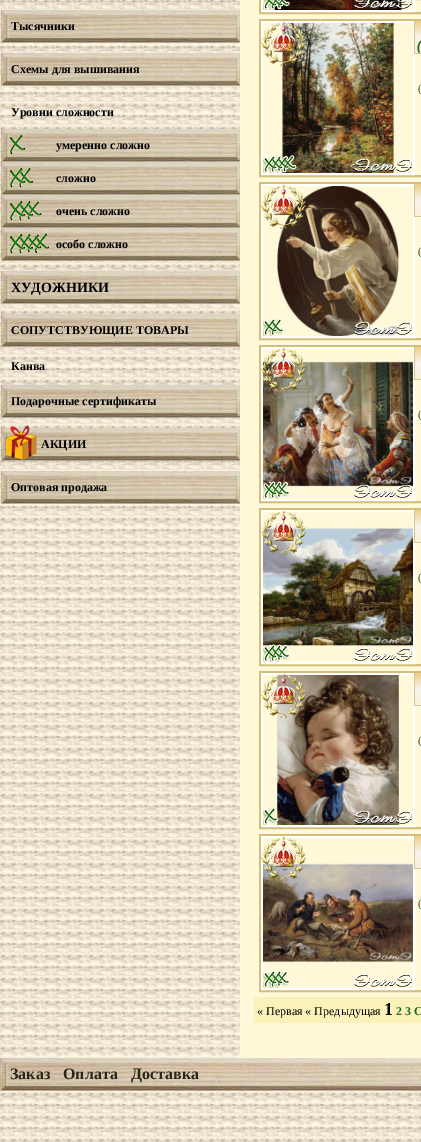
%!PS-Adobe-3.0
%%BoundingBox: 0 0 421 1142
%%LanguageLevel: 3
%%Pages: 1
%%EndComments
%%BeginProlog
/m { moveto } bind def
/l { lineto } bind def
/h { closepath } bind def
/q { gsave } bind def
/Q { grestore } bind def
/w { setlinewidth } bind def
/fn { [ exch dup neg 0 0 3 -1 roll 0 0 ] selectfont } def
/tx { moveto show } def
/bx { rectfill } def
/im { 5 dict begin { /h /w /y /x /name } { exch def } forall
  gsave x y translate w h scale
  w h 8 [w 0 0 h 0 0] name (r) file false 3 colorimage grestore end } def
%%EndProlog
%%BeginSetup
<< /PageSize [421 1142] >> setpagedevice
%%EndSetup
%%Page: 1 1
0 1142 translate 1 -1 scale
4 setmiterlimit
1 setgray
0 0 421 1142 bx
(image0.raw) 0 0 421 1142 im
(image1.raw) 1 10 239 33 im
/LiberationSerif-Bold 12 fn
0 setgray
(Тысячники) 11 30 tx
(image1.raw) 1 53 239 33 im
(Схемы для вышивания) 11 73 tx
(Уровни сложности) 11 116 tx
(image1.raw) 1 129 239 33 im
(image2.raw) 9 134 17 21 im
(умеренно сложно) 56 149 tx
(image1.raw) 1 162 239 33 im
(image3.raw) 9 167 25 21 im
(сложно) 56 182 tx
(image1.raw) 1 195 239 33 im
(image4.raw) 9 200 33 21 im
(очень сложно) 56 215 tx
(image1.raw) 1 228 239 33 im
(image5.raw) 9 233 40 21 im
(особо сложно) 56 248 tx
(image1.raw) 1 271 239 33 im
/LiberationSerif-Bold 14 fn
(ХУДОЖНИКИ) 11 292 tx
(image1.raw) 1 314 239 33 im
/LiberationSerif-Bold 12 fn
(СОПУТСТВУЮЩИЕ ТОВАРЫ) 11 334 tx
(Канва) 11 370 tx
(image1.raw) 1 385 239 33 im
(Подарочные сертификаты) 11 405 tx
(image1.raw) 1 428 239 33 im
(image6.raw) 5 425 32 35 im
(АКЦИИ) 41 448 tx
(image1.raw) 1 471 239 33 im
(Оптовая продажа) 11 491 tx
1 0.976 0.851 setrgbcolor
240 0 181 1058 bx
0.835 0.745 0.482 setrgbcolor
2 w
260 -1 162 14 rectstroke
1 setgray
262 -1 152 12 rectstroke
(image7.raw) 273 0 129 10 im
(image8.raw) 263 0 27 10 im
(image9.raw) 354 0 58 9 im
0.835 0.745 0.482 setrgbcolor
260 20 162 156 rectstroke
1 setgray
262 22 152 152 rectstroke
(image10.raw) 281 23 114 150 im
(image11.raw) 261 21 45 45 im
(image12.raw) 263 155 34 18 im
(image13.raw) 354 158 58 14 im
q 415 21 m 421 21 l 421 53 l 415 53 l h clip newpath
<< /ShadingType 2 /ColorSpace /DeviceRGB /Coords [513 21 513 53] /Extend [true true] /Function << /FunctionType 3 /Domain [0 1] /Functions [<< /FunctionType 2 /Domain [0 1] /C0 [0.929 0.808 0.529] /C1 [0.969 0.957 0.929] /N 1 >> << /FunctionType 2 /Domain [0 1] /C0 [0.969 0.957 0.929] /C1 [0.976 0.941 0.839] /N 1 >>] /Bounds [0.5] /Encode [0 1 0 1] >> >> shfill Q
0.827 0.773 0.588 setrgbcolor
414 53 7 1 bx
414 21 1 33 bx
/LiberationSans-BoldItalic 13 fn
0.137 0.42 0.09 setrgbcolor
(\() 417 50 tx
/LiberationSerif-Regular 11 fn
0.145 0.286 0.247 setrgbcolor
(\() 418 92 tx
0.835 0.745 0.482 setrgbcolor
260 183 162 156 rectstroke
1 setgray
262 185 152 152 rectstroke
(image14.raw) 277 186 122 150 im
(image15.raw) 261 184 45 45 im
(image16.raw) 263 318 21 18 im
(image17.raw) 354 321 58 14 im
q 415 184 m 421 184 l 421 216 l 415 216 l h clip newpath
<< /ShadingType 2 /ColorSpace /DeviceRGB /Coords [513 184 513 216] /Extend [true true] /Function << /FunctionType 3 /Domain [0 1] /Functions [<< /FunctionType 2 /Domain [0 1] /C0 [0.929 0.808 0.529] /C1 [0.969 0.957 0.929] /N 1 >> << /FunctionType 2 /Domain [0 1] /C0 [0.969 0.957 0.929] /C1 [0.976 0.941 0.839] /N 1 >>] /Bounds [0.5] /Encode [0 1 0 1] >> >> shfill Q
0.827 0.773 0.588 setrgbcolor
414 216 7 1 bx
414 184 1 33 bx
0.145 0.286 0.247 setrgbcolor
(\() 418 255 tx
0.835 0.745 0.482 setrgbcolor
260 346 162 156 rectstroke
1 setgray
262 348 152 152 rectstroke
(image18.raw) 263 361 150 126 im
(image19.raw) 261 347 45 45 im
(image20.raw) 263 481 27 18 im
(image21.raw) 354 484 58 14 im
q 415 347 m 421 347 l 421 379 l 415 379 l h clip newpath
<< /ShadingType 2 /ColorSpace /DeviceRGB /Coords [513 347 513 379] /Extend [true true] /Function << /FunctionType 3 /Domain [0 1] /Functions [<< /FunctionType 2 /Domain [0 1] /C0 [0.929 0.808 0.529] /C1 [0.969 0.957 0.929] /N 1 >> << /FunctionType 2 /Domain [0 1] /C0 [0.969 0.957 0.929] /C1 [0.976 0.941 0.839] /N 1 >>] /Bounds [0.5] /Encode [0 1 0 1] >> >> shfill Q
0.827 0.773 0.588 setrgbcolor
414 379 7 1 bx
414 347 1 33 bx
0.145 0.286 0.247 setrgbcolor
(\() 418 418 tx
0.835 0.745 0.482 setrgbcolor
260 509 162 156 rectstroke
1 setgray
262 511 152 152 rectstroke
(image22.raw) 263 527 150 120 im
(image23.raw) 261 510 45 45 im
(image24.raw) 263 644 27 18 im
(image25.raw) 354 647 58 14 im
q 415 510 m 421 510 l 421 542 l 415 542 l h clip newpath
<< /ShadingType 2 /ColorSpace /DeviceRGB /Coords [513 510 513 542] /Extend [true true] /Function << /FunctionType 3 /Domain [0 1] /Functions [<< /FunctionType 2 /Domain [0 1] /C0 [0.929 0.808 0.529] /C1 [0.969 0.957 0.929] /N 1 >> << /FunctionType 2 /Domain [0 1] /C0 [0.969 0.957 0.929] /C1 [0.976 0.941 0.839] /N 1 >>] /Bounds [0.5] /Encode [0 1 0 1] >> >> shfill Q
0.827 0.773 0.588 setrgbcolor
414 542 7 1 bx
414 510 1 33 bx
0.145 0.286 0.247 setrgbcolor
(\() 418 581 tx
0.835 0.745 0.482 setrgbcolor
260 672 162 156 rectstroke
1 setgray
262 674 152 152 rectstroke
(image26.raw) 275 675 124 150 im
(image27.raw) 261 673 45 45 im
(image28.raw) 263 807 16 18 im
(image29.raw) 354 810 58 14 im
q 415 673 m 421 673 l 421 705 l 415 705 l h clip newpath
<< /ShadingType 2 /ColorSpace /DeviceRGB /Coords [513 673 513 705] /Extend [true true] /Function << /FunctionType 3 /Domain [0 1] /Functions [<< /FunctionType 2 /Domain [0 1] /C0 [0.929 0.808 0.529] /C1 [0.969 0.957 0.929] /N 1 >> << /FunctionType 2 /Domain [0 1] /C0 [0.969 0.957 0.929] /C1 [0.976 0.941 0.839] /N 1 >>] /Bounds [0.5] /Encode [0 1 0 1] >> >> shfill Q
0.827 0.773 0.588 setrgbcolor
414 705 7 1 bx
414 673 1 33 bx
0.145 0.286 0.247 setrgbcolor
(\() 418 744 tx
0.835 0.745 0.482 setrgbcolor
260 835 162 156 rectstroke
1 setgray
262 837 152 152 rectstroke
(image30.raw) 263 863 150 100 im
(image31.raw) 261 836 45 45 im
(image32.raw) 263 970 27 18 im
(image25.raw) 354 973 58 14 im
q 415 836 m 421 836 l 421 868 l 415 868 l h clip newpath
<< /ShadingType 2 /ColorSpace /DeviceRGB /Coords [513 836 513 868] /Extend [true true] /Function << /FunctionType 3 /Domain [0 1] /Functions [<< /FunctionType 2 /Domain [0 1] /C0 [0.929 0.808 0.529] /C1 [0.969 0.957 0.929] /N 1 >> << /FunctionType 2 /Domain [0 1] /C0 [0.969 0.957 0.929] /C1 [0.976 0.941 0.839] /N 1 >>] /Bounds [0.5] /Encode [0 1 0 1] >> >> shfill Q
0.827 0.773 0.588 setrgbcolor
414 868 7 1 bx
414 836 1 33 bx
0.145 0.286 0.247 setrgbcolor
(\() 418 907 tx
0.984 0.949 0.725 setrgbcolor
254 997 167 26 bx
/LiberationSerif-Regular 12 fn
0 setgray
(« Первая « Предыдущая) 257 1015 tx
/LiberationSerif-Bold 18 fn
(1) 384 1015 tx
/LiberationSerif-Bold 12 fn
0.137 0.42 0.09 setrgbcolor
(2 3 С) 396 1015 tx
(image33.raw) 0 1058 421 33 im
/LiberationSerif-Bold 16 fn
0.165 0.153 0.094 setrgbcolor
(Заказ) 10 1079 tx
(Оплата) 63 1079 tx
(Доставка) 131 1079 tx
showpage
%%EOF
